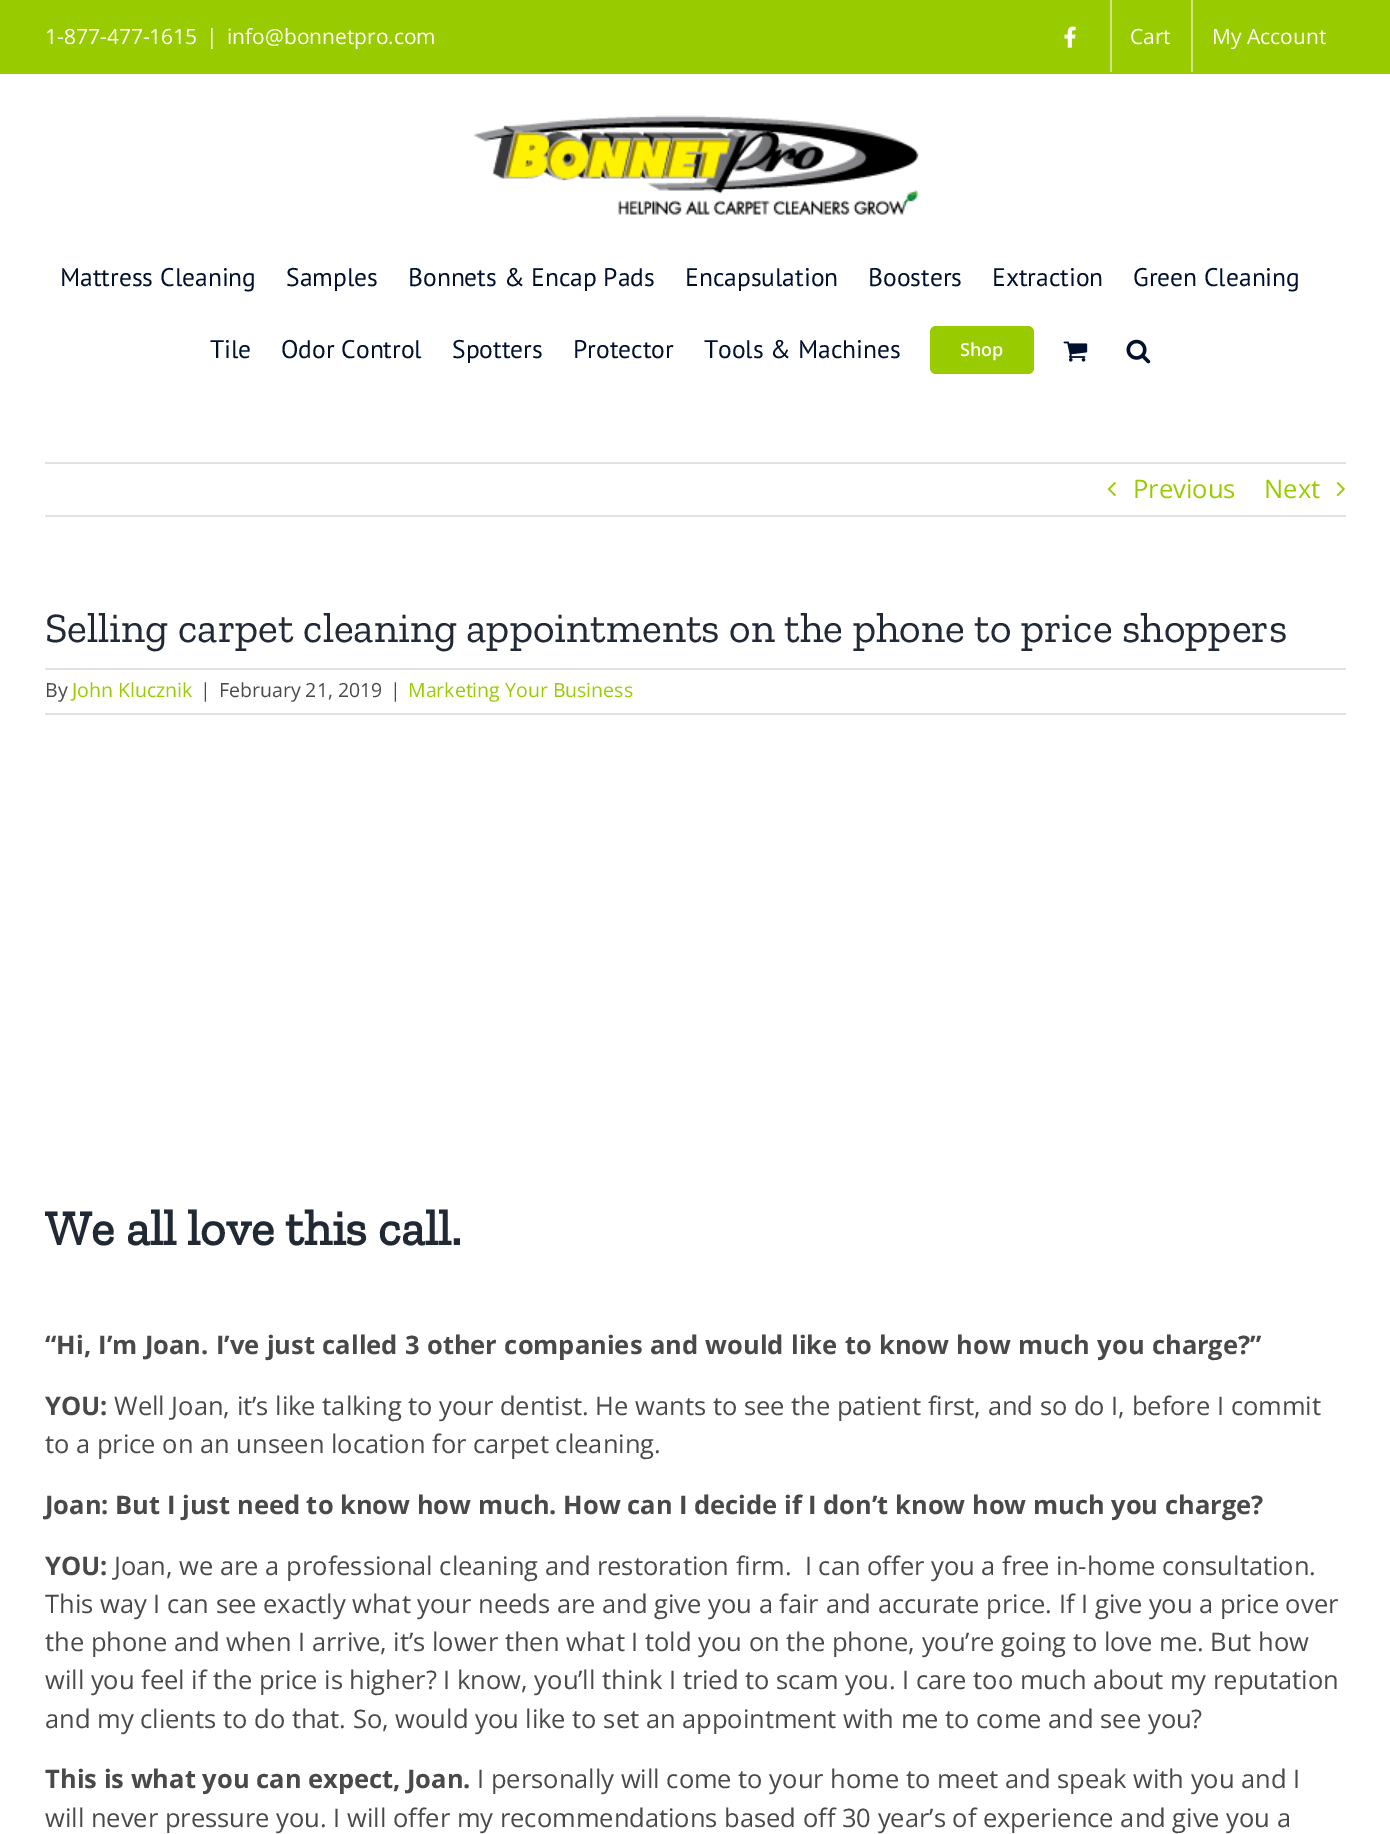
%!PS-Adobe-3.0
%%BoundingBox: 0 0 1390 1834
%%LanguageLevel: 3
%%Pages: 1
%%EndComments
%%BeginProlog
/m { moveto } bind def
/f { fill } bind def
/fn { [ exch dup neg 0 0 3 -1 roll 0 0 ] selectfont } def
/tx { moveto show } def
/bx { rectfill } def
/rr { 5 dict begin { /r /h /w /y /x } { exch def } forall
  x r add y moveto x w add y 2 copy h add r arct x w add y h add x 1 index r arct
  x y h add x y r arct x y 2 copy exch w add exch r arct closepath end } def
/im { 5 dict begin { /h /w /y /x /name } { exch def } forall
  gsave x y translate w h scale
  w h 8 [w 0 0 h 0 0] name (r) file false 3 colorimage grestore end } def
%%EndProlog
%%BeginSetup
<< /PageSize [1390 1834] >> setpagedevice
%%EndSetup
%%Page: 1 1
0 1834 translate 1 -1 scale
4 setmiterlimit
1 setgray
0 0 1390 1834 bx
0.6 0.8 0 setrgbcolor
0 0 1390 74 bx
/OpenSans-Regular 21 fn
1 setgray
(1-877-477-1615) 45 44 tx
(|) 206 44 tx
(info@bonnetpro.com) 227 44 tx
(image0.raw) 1064 26 12 22 im
0.804 0.902 0.51 setrgbcolor
1110 0 2 72 bx
1 setgray
(Cart) 1130 44 tx
0.804 0.902 0.51 setrgbcolor
1191 0 2 72 bx
1 setgray
(My Account) 1212 44 tx
(image1.raw) 473 115 446 100 im
/PTSans-Regular 25.5 fn
0 0.063 0.176 setrgbcolor
(Mattress Cleaning) 60 286 tx
(Samples) 286 286 tx
(Bonnets & Encap Pads) 408 286 tx
(Encapsulation) 685 286 tx
(Boosters) 868 286 tx
(Extraction) 992 286 tx
(Green Cleaning) 1133 286 tx
(Tile) 210 358 tx
(Odor Control) 281 358 tx
(Spotters) 452 358 tx
(Protector) 573 358 tx
(Tools & Machines) 704 358 tx
0.6 0.8 0 setrgbcolor
930 326 104 48 6 rr f
/OpenSans-SemiBold 18 fn
1 setgray
(Shop) 960 356 tx
(image2.raw) 1063 341 25 21 im
(image3.raw) 1126 339 25 25 im
0.886 setgray
45 462 1301 2 bx
45 515 1301 2 bx
(image4.raw) 1107 482 9 15 im
/OpenSans-Regular 25.5 fn
0.6 0.8 0 setrgbcolor
(Previous) 1133 498 tx
(Next) 1264 498 tx
(image5.raw) 1336 482 9 15 im
/ZillaSlab-Regular 42 fn
0.129 0.161 0.204 setrgbcolor
(Selling carpet cleaning appointments on the phone to price shoppers) 45 642 tx
0.886 setgray
45 668 1301 2 bx
45 713 1301 2 bx
/OpenSans-Regular 19.5 fn
0.286 setgray
(By) 45 697 tx
0.6 0.8 0 setrgbcolor
(John Klucznik) 72 697 tx
0.286 setgray
(|) 200 697 tx
(February 21, 2019) 219 697 tx
(|) 390 697 tx
0.6 0.8 0 setrgbcolor
(Marketing Your Business) 408 697 tx
/ZillaSlab-Bold 49.5 fn
0.129 0.161 0.204 setrgbcolor
(We all love this call.) 45 1245 tx
/OpenSans-Bold 25.5 fn
0.286 setgray
45 1354 m 0.75 0 32 (“Hi, I’m Joan. I’ve just called 3 other companies and would like to know how much you charge?”) widthshow
(YOU:) 45 1415 tx
/OpenSans-Regular 25.5 fn
(Well Joan, it’s like talking to your dentist. He wants to see the patient first, and so do I, before I commit) 114 1415 tx
(to a price on an unseen location for carpet cleaning.) 45 1453 tx
/OpenSans-Bold 25.5 fn
(Joan: But I just need to know how much. How can I decide if I don’t know how much you charge?) 45 1514 tx
(YOU:) 45 1575 tx
/OpenSans-Regular 25.5 fn
(Joan, we are a professional cleaning and restoration firm.  I can offer you a free in-home consultation.) 114 1575 tx
(This way I can see exactly what your needs are and give you a fair and accurate price. If I give you a price over) 45 1613 tx
(the phone and when I arrive, it’s lower then what I told you on the phone, you’re going to love me. But how) 45 1651 tx
(will you feel if the price is higher? I know, you’ll think I tried to scam you. I care too much about my reputation) 45 1689 tx
(and my clients to do that. So, would you like to set an appointment with me to come and see you?) 45 1728 tx
/OpenSans-Bold 25.5 fn
(This is what you can expect, Joan.) 45 1788 tx
/OpenSans-Regular 25.5 fn
(I personally will come to your home to meet and speak with you and I) 477 1788 tx
(will never pressure you. I will offer my recommendations based off 30 year’s of experience and give you a) 45 1827 tx
showpage
%%EOF
